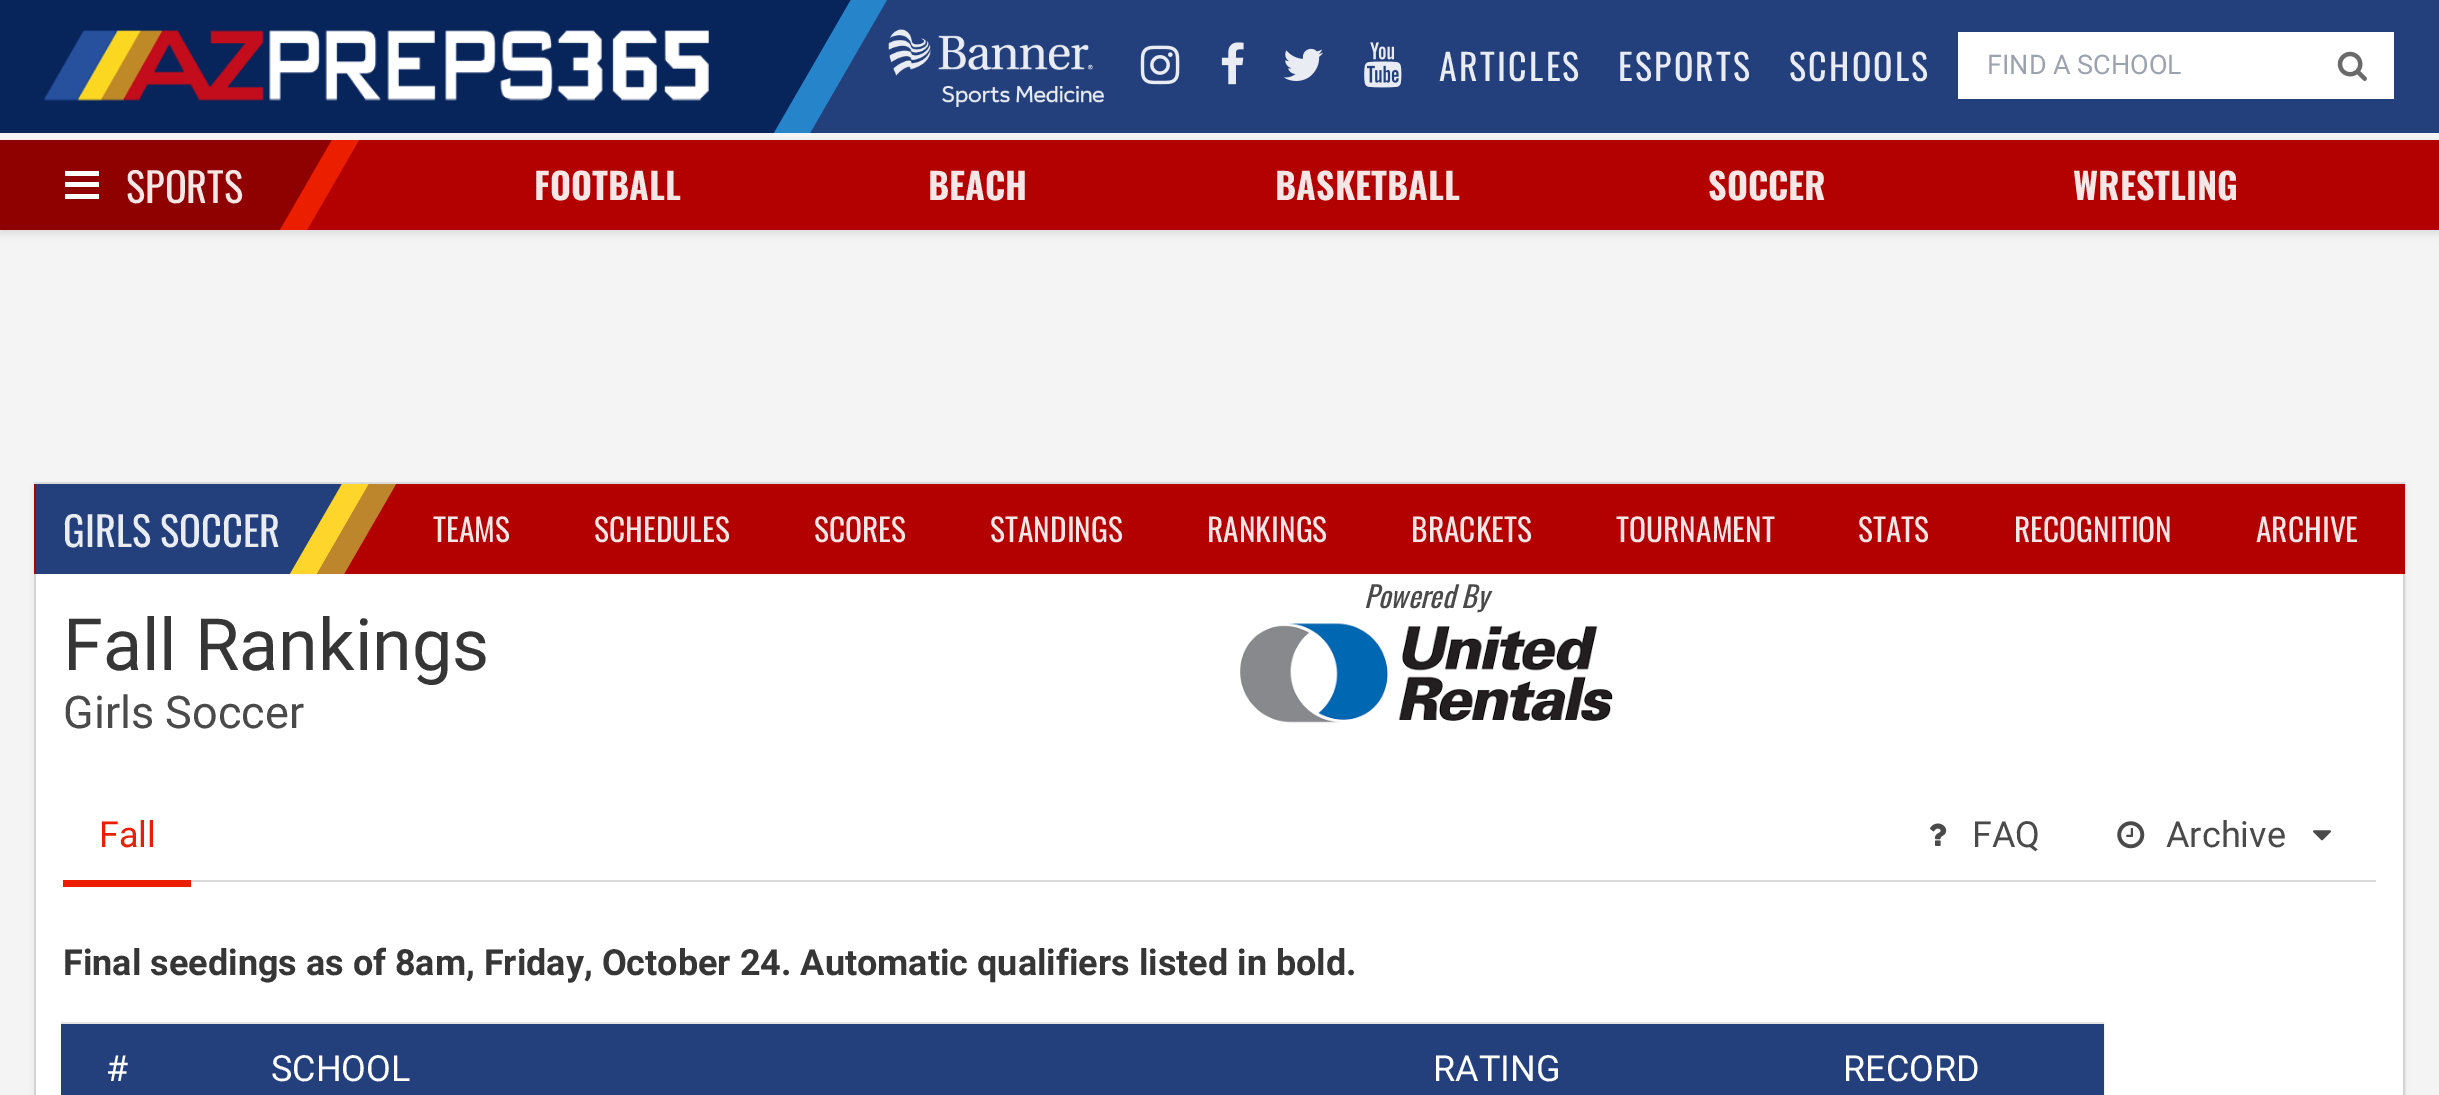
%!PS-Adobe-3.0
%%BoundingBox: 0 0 2439 1095
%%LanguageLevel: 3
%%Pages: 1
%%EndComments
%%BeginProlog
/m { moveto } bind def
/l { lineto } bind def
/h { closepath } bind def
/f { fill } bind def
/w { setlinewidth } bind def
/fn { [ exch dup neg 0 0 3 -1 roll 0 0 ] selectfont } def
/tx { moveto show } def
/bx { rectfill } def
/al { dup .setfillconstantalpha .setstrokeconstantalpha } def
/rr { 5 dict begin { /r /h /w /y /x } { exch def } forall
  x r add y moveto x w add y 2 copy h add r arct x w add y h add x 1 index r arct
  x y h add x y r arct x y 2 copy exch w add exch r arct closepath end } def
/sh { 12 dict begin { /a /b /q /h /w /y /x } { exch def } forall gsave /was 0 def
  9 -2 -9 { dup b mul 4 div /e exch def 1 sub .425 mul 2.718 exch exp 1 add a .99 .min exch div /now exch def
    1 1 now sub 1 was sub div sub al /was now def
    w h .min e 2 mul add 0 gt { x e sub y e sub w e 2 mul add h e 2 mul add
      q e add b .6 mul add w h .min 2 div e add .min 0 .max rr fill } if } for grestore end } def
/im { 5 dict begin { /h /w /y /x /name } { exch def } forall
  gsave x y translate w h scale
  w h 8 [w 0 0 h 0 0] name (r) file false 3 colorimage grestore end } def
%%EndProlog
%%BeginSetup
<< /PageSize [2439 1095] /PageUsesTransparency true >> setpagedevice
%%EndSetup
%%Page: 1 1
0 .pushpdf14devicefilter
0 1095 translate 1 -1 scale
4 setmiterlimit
0.957 setgray
0 0 2439 1095 bx
0.039 setgray
0 144 2439 90 0 3.5 0.1 sh
0.137 0.251 0.486 setrgbcolor
810 0 1629 133 bx
0.027 0.141 0.357 setrgbcolor
0 0 810 133 bx
(image0.raw) 44 30 665 71 im
807 -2 m 852 -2 l 774 133 l 729 133 l h f
0.149 0.518 0.796 setrgbcolor
852 -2 m 888 -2 l 810 133 l 774 133 l h f
(image1.raw) 888 29 216 78 im
(image2.raw) 1140 45 40 40 im
(image3.raw) 1221 42 23 43 im
(image4.raw) 1283 48 40 33 im
(image5.raw) 1364 42 38 46 im
/Oswald-Regular 36 fn
0.914 0.925 0.949 setrgbcolor
1439 81 m 2.25 0 (ARTICLES) ashow
1618 81 m 2.25 0 (ESPORTS) ashow
1789 81 m 2.25 0 (SCHOOLS) ashow
1 setgray
1958 32 436 67 bx
/Roboto-Regular 27 fn
0.612 0.639 0.686 setrgbcolor
(FIND A SCHOOL) 1987 74 tx
(image6.raw) 2337 51 30 30 im
0.702 0 0 setrgbcolor
306 140 2133 90 bx
0.561 0 0 setrgbcolor
0 140 306 90 bx
1 setgray
65 171 34 5 bx
65 182 34 5 bx
65 194 34 5 bx
/Oswald-Regular 40.5 fn
0.969 0.902 0.902 setrgbcolor
(SPORTS) 126 203 tx
0.561 0 0 setrgbcolor
305 140 m 332 140 l 280 230 l 253 230 l h f
0.922 0.118 0 setrgbcolor
332 140 m 359 140 l 307 230 l 280 230 l h f
/Oswald-Bold 36 fn
0.969 0.902 0.902 setrgbcolor
(FOOTBALL) 534 200 tx
(BEACH) 928 200 tx
(BASKETBALL) 1275 200 tx
(SOCCER) 1708 200 tx
(WRESTLING) 2073 200 tx
0.867 setgray
2 w
35 483 2369 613 rectstroke
0.039 setgray
36 488 2367 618 0 3.5 0.1 sh
1 setgray
36 574 2367 521 bx
0.702 0 0 setrgbcolor
34 484 2371 90 bx
0.137 0.251 0.486 setrgbcolor
36 484 308 90 bx
/Oswald-Regular 40.5 fn
0.914 0.925 0.949 setrgbcolor
(GIRLS SOCCER) 63 547 tx
0.992 0.835 0.169 setrgbcolor
342 484 m 369 484 l 317 574 l 290 574 l h f
0.745 0.525 0.173 setrgbcolor
369 484 m 396 484 l 344 574 l 317 574 l h f
/Oswald-Regular 31.5 fn
0.969 0.902 0.902 setrgbcolor
(TEAMS) 433 542 tx
(SCHEDULES) 594 542 tx
(SCORES) 814 542 tx
(STANDINGS) 990 542 tx
(RANKINGS) 1207 542 tx
(BRACKETS) 1411 542 tx
(TOURNAMENT) 1616 542 tx
(STATS) 1858 542 tx
(RECOGNITION) 2014 542 tx
(ARCHIVE) 2256 542 tx
/Oswald-Italic 29.25 fn
0.29 setgray
(Powered By) 1364 608 tx
(image7.raw) 1240 623 373 100 im
/Roboto-Regular 72 fn
0.212 setgray
(Fall Rankings) 63 670 tx
/Roboto-Regular 45 fn
0.29 setgray
(Girls Soccer) 63 728 tx
0.855 setgray
191 880 2185 2 bx
0.922 0.118 0 setrgbcolor
63 880 128 7 bx
/Roboto-Regular 36 fn
(Fall) 99 847 tx
(image8.raw) 1930 823 17 23 im
0.29 setgray
(FAQ) 1972 847 tx
(image9.raw) 2117 821 28 28 im
(Archive) 2166 847 tx
(image10.raw) 2313 830 18 11 im
/Roboto-Bold 36 fn
0.212 setgray
(Final seedings as of 8am, Friday, October 24. Automatic qualifiers listed in bold.) 63 975 tx
0.906 setgray
62 1023 2041 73 rectstroke
0.039 setgray
63 1028 2039 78 0 3.5 0.1 sh
0.137 0.251 0.486 setrgbcolor
61 1024 2043 71 bx
/Roboto-Regular 36 fn
1 setgray
(#) 106 1081 tx
(SCHOOL) 271 1081 tx
(RATING) 1433 1081 tx
(RECORD) 1843 1081 tx
.poppdf14devicefilter showpage
%%EOF
